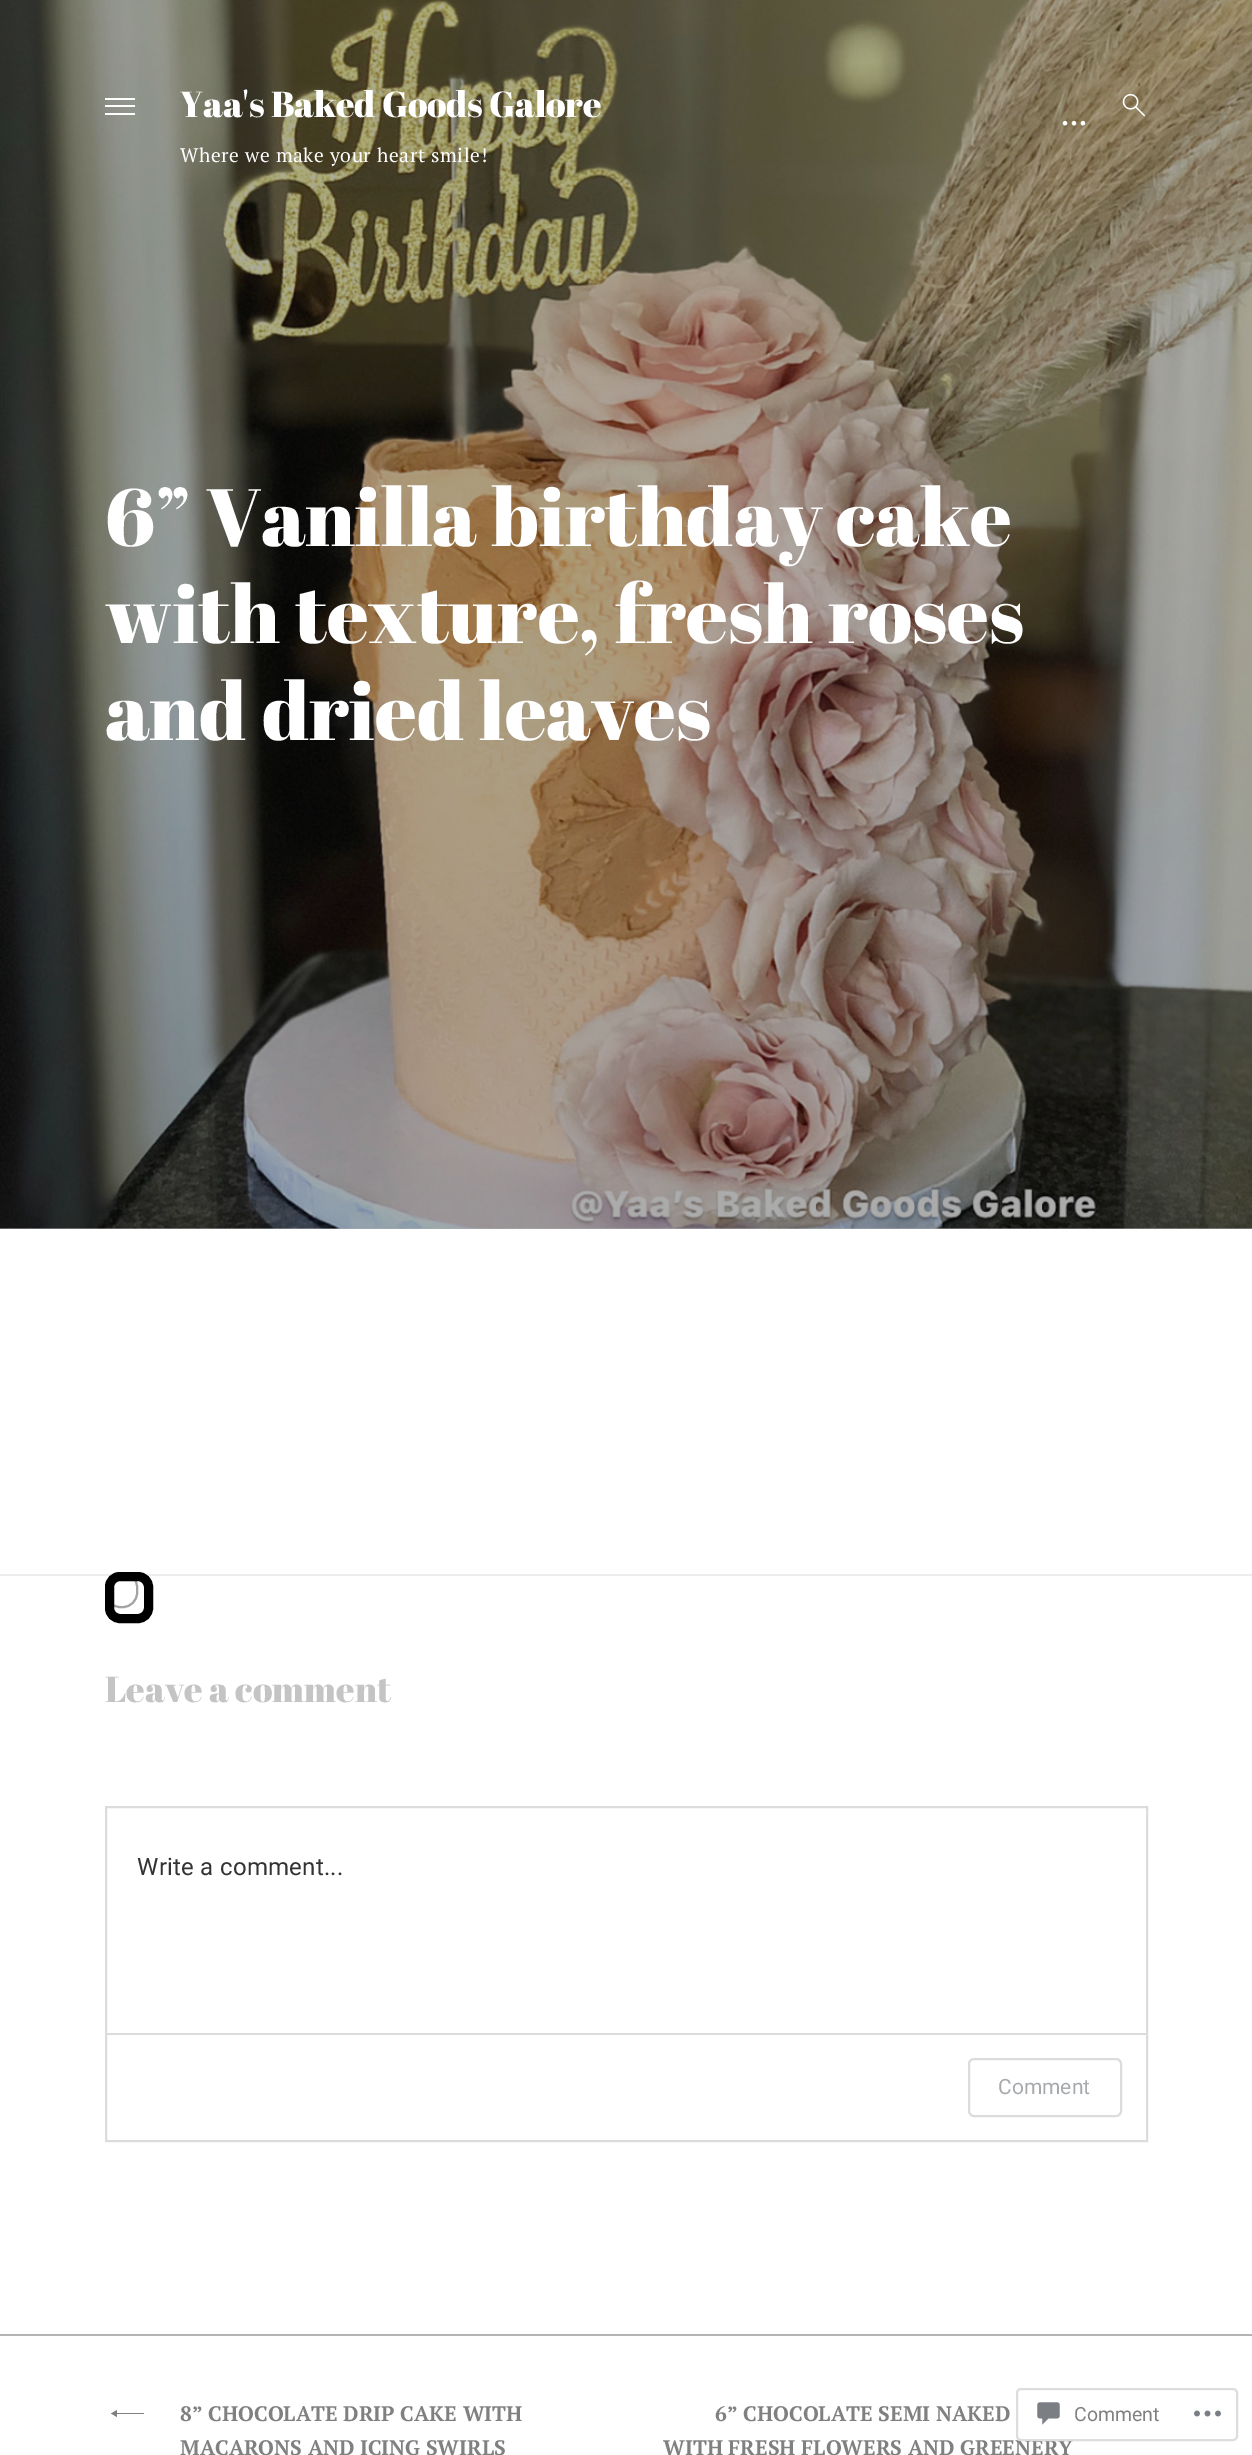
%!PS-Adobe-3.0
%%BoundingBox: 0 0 1252 2455
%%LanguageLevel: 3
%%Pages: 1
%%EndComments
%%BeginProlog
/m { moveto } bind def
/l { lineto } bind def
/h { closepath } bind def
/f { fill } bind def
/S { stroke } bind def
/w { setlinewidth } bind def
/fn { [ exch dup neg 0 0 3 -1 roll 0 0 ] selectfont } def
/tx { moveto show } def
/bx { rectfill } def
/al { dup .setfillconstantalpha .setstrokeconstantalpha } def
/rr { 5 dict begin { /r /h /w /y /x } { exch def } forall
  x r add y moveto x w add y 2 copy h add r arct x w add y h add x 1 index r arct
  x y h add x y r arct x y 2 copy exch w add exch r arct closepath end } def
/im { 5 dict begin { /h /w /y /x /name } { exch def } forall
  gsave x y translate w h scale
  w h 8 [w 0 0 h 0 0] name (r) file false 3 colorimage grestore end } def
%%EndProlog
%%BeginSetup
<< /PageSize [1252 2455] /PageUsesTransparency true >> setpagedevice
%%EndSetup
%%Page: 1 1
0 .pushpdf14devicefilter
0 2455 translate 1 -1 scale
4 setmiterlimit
1 setgray
0 0 1252 2455 bx
0.675 setgray
0 1228 1252 1 bx
(image2.raw) 0 0 1252 1229 im
1 setgray
105 105 30 2 bx
105 98 30 2 bx
105 113 30 2 bx
/AbrilFatface-Regular 36 fn
180 117 m -0.15 0 (Yaa's Baked Goods Galore) ashow
/PTSerif-Regular 19.5 fn
180 162 m 0.6 0 (Where we make your heart smile!) ashow
(image0.raw) 1062 120 24 6 im
(image1.raw) 1122 93 24 24 im
/AbrilFatface-Regular 81 fn
(6” Vanilla birthday cake) 105 546 tx
(with texture, fresh roses) 105 643 tx
(and dried leaves) 105 740 tx
0.929 setgray
0 1574 1252 2 bx
/AbrilFatface-Regular 36 fn
0.769 setgray
(Leave a comment) 105 1702 tx
0.863 0.863 0.871 setrgbcolor
2 w
106 1807 1041 334 rectstroke
107 2033 1039 2 bx
0 setgray
9 w
109.5 1576.5 39 42 10.5 rr S
0.2 al
2 w
106 1573 31 34 14 rr S
106 1573 31 34 14 rr S
/Roboto-Regular 24 fn
1 al
0.2 setgray
137 1875 m 0.25 0 (Write a comment...) ashow
0.863 0.863 0.871 setrgbcolor
969 2059 152 57 5 rr S
/Roboto-Regular 21 fn
0.655 0.667 0.678 setrgbcolor
(Comment) 998 2094 tx
0.702 setgray
0 2334 1252 2 bx
0.502 setgray
117 2417 m 117 2414 l 144 2414 l 144 2413 l 117 2413 l 117 2410 l 111 2413.5 l h f
/PTSerif-Bold 21 fn
(8” CHOCOLATE DRIP CAKE WITH) 180 2421 tx
(MACARONS AND ICING SWIRLS) 180 2455 tx
(6” CHOCOLATE SEMI NAKED) 715 2421 tx
1141.5 2413.5 m 1135.5 2410 l 1135.5 2413 l 1108.5 2413 l 1108.5 2414 l 1135.5 2414 l 1135.5 2417 l h f
(WITH FRESH FLOWERS AND GREENERY) 663 2455 tx
0.98 al
1 setgray
1016 2388 222 53 5 rr f
0.863 0.863 0.871 setrgbcolor
1017 2389 220 51 4 rr S
1 al
(image3.raw) 1037 2402 23 23 im
/Roboto-Regular 19.5 fn
0.502 setgray
(Comment) 1074 2421 tx
(image4.raw) 1194 2410 27 7 im
.poppdf14devicefilter showpage
%%EOF
